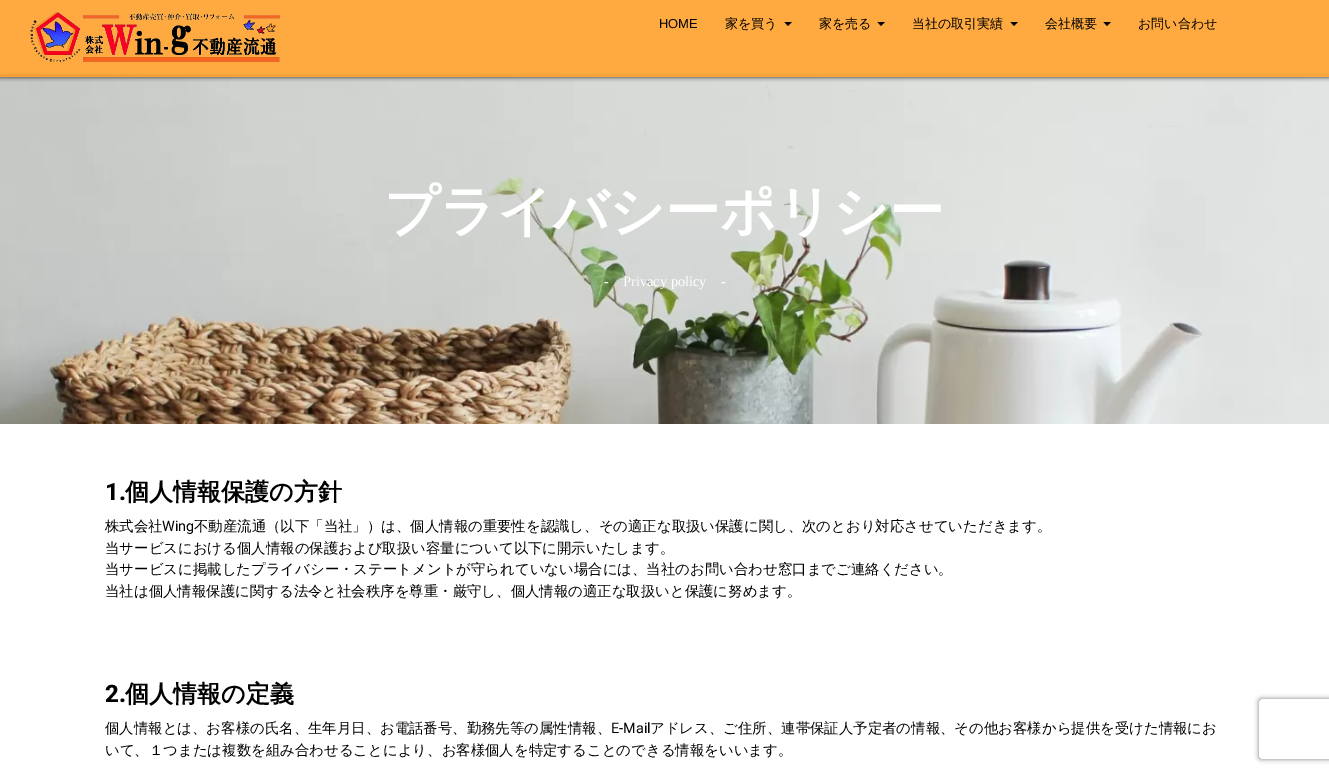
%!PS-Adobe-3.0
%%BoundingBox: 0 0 1329 773
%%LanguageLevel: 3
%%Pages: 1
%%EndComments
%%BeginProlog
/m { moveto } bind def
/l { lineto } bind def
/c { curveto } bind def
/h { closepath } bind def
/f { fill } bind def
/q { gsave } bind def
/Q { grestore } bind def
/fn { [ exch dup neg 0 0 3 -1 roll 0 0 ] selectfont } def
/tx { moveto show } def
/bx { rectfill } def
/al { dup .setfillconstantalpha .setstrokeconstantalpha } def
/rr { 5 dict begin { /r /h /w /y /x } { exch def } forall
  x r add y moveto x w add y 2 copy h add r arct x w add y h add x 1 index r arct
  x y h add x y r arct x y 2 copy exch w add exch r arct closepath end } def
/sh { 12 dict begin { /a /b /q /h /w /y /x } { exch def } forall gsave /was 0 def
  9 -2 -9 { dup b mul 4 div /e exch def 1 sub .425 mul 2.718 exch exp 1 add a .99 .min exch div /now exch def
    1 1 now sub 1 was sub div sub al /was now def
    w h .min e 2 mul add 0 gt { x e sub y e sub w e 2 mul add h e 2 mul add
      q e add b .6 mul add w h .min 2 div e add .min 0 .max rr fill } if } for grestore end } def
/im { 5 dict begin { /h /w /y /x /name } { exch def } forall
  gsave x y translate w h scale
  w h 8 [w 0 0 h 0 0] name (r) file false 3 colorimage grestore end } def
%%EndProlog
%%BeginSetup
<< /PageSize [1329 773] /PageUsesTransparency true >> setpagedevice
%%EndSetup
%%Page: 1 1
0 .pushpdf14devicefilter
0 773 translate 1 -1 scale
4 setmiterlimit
1 setgray
0 0 1329 773 bx
(image1.raw) 0 74 1329 350 im
q
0 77 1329 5 rectclip
0.169 setgray
0 0 1329 77 0 2.5 1 sh
Q
0.82 al
1 0.592 0.086 setrgbcolor
0 0 1329 77 bx
1 al
(image0.raw) 30 11 250 52 im
/LiberationSans-Regular 13 fn
0 setgray
(HOME) 659 28 tx
/WenQuanYiZenHei-Medium 13 fn
(家を買う) 725 28 tx
784.5 22 m 788 26 l 792 22 l h f
(家を売る) 819 28 tx
877.5 22 m 881 26 l 885 22 l h f
(当社の取引実績) 912 28 tx
1010.5 22 m 1014 26 l 1018 22 l h f
(会社概要) 1045 28 tx
1103.5 22 m 1107 26 l 1111 22 l h f
(お問い合わせ) 1138 28 tx
/WenQuanYiZenHei-Bold 55 fn
1 setgray
(プライバシーポリシー) 384 230 tx
/LiberationSerif-Regular 14.4 fn
(-) 604 286 tx
(Privacy policy) 623 286 tx
(-) 721 286 tx
/Roboto-ExtraBold 24 fn
0 setgray
(1.) 105 500 tx
/WenQuanYiZenHei-Bold 24 fn
(個人情報保護の方針) 125 500 tx
/WenQuanYiZenHei-Medium 14.4 fn
(株式会社) 105 531 tx
/Roboto-Regular 14.4 fn
(Wing) 162 531 tx
/WenQuanYiZenHei-Medium 14.4 fn
(不動産流通（以下「当社」）は、個人情報の重要性を認識し、その適正な取扱い保護に関し、次のとおり対応させていただきます。) 194 531 tx
(当サービスにおける個人情報の保護および取扱い容量について以下に開示いたします。) 105 553 tx
(当サービスに掲載したプライバシー・ステートメントが守られていない場合には、当社のお問い合わせ窓口までご連絡ください。) 105 574 tx
(当社は個人情報保護に関する法令と社会秩序を尊重・厳守し、個人情報の適正な取扱いと保護に努めます。) 105 596 tx
/Roboto-ExtraBold 24 fn
(2.) 105 702 tx
/WenQuanYiZenHei-Bold 24 fn
(個人情報の定義) 125 702 tx
/WenQuanYiZenHei-Medium 14.4 fn
(個人情報とは、お客様の氏名、生年月日、お電話番号、勤務先等の属性情報、) 105 733 tx
/Roboto-Regular 14.4 fn
(E-Mail) 611 733 tx
/WenQuanYiZenHei-Medium 14.4 fn
(アドレス、ご住所、連帯保証人予定者の情報、その他お客様から提供を受けた情報にお) 650 733 tx
(いて、１つまたは複数を組み合わせることにより、お客様個人を特定することのできる情報をいいます。) 105 755 tx
q
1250 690 m 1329 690 l 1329 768 l 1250 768 l h 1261 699 m 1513 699 l 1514 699 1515 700 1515 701 c 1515 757 l 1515 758 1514 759 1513 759 c 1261 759 l 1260 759 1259 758 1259 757 c 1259 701 l 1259 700 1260 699 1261 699 c h eoclip newpath
0.502 setgray
1259 699 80 60 2 2.5 1 sh
Q
.poppdf14devicefilter showpage
%%EOF
